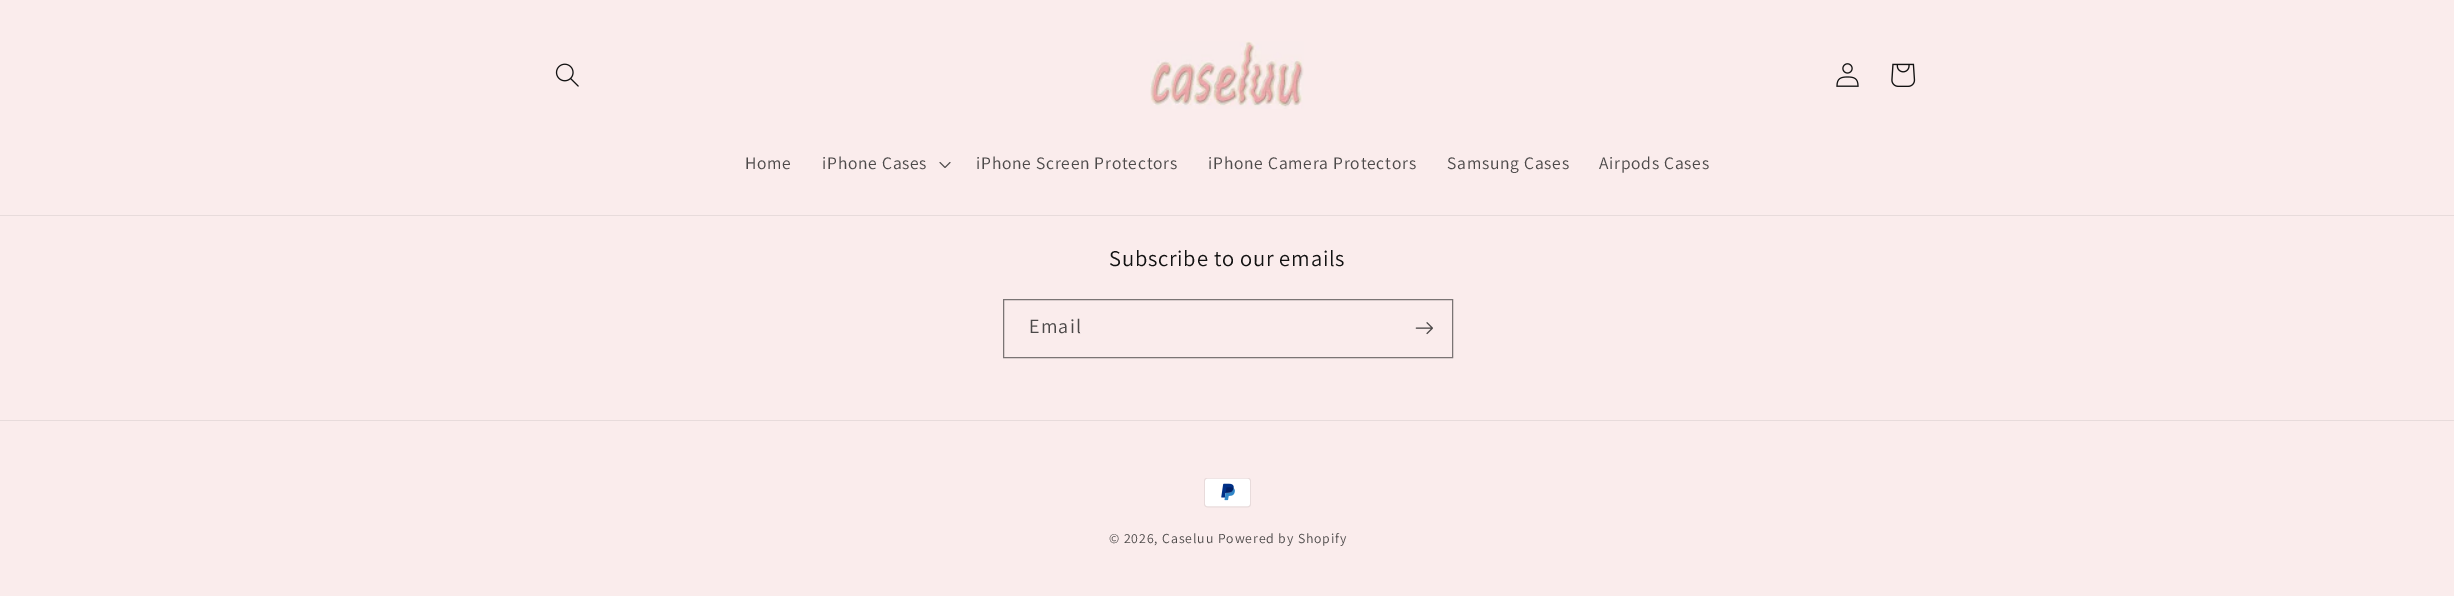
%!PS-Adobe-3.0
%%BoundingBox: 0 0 2454 596
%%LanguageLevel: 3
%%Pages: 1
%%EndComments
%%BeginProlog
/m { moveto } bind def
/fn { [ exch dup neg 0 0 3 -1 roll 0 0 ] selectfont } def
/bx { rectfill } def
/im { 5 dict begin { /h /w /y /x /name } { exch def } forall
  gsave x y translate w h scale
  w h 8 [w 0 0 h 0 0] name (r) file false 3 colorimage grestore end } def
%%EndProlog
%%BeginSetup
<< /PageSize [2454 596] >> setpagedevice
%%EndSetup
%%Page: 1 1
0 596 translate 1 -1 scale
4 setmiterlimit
0.98 0.925 0.925 setrgbcolor
0 0 2454 596 bx
0.906 0.859 0.859 setrgbcolor
0 215 2454 1 bx
(image0.raw) 555 63 24 24 im
(image1.raw) 1150 41 154 68 im
(image2.raw) 1836 63 23 24 im
(image3.raw) 1891 63 25 24 im
/Assistant-Regular 17.5 fn
0.298 0.286 0.286 setrgbcolor
745 169 m 0.75 0 (Home) ashow
822 169 m 0.75 0 (iPhone Cases) ashow
(image4.raw) 939 162 12 6 im
976 169 m 0.75 0 (iPhone Screen Protectors) ashow
1208 169 m 0.75 0 (iPhone Camera Protectors) ashow
1447 169 m 0.75 0 (Samsung Cases) ashow
1599 169 m 0.75 0 (Airpods Cases) ashow
/Assistant-Regular 22.5 fn
0.071 setgray
1109 266 m 0.75 0 (Subscribe to our emails) ashow
0.478 0.455 0.455 setrgbcolor
1003.5 299.5 449 58 rectstroke
/Assistant-Regular 20 fn
0.298 0.286 0.286 setrgbcolor
1029 333 m 1.25 0 (Email) ashow
(image5.raw) 1415 322 18 13 im
0.906 0.859 0.859 setrgbcolor
0 420 2454 1 bx
(image6.raw) 1204 478 47 30 im
/Assistant-Regular 13.75 fn
0.298 0.286 0.286 setrgbcolor
1109 543 m 0.9 0 (© 2026, Caseluu Powered by Shopify) ashow
showpage
%%EOF
